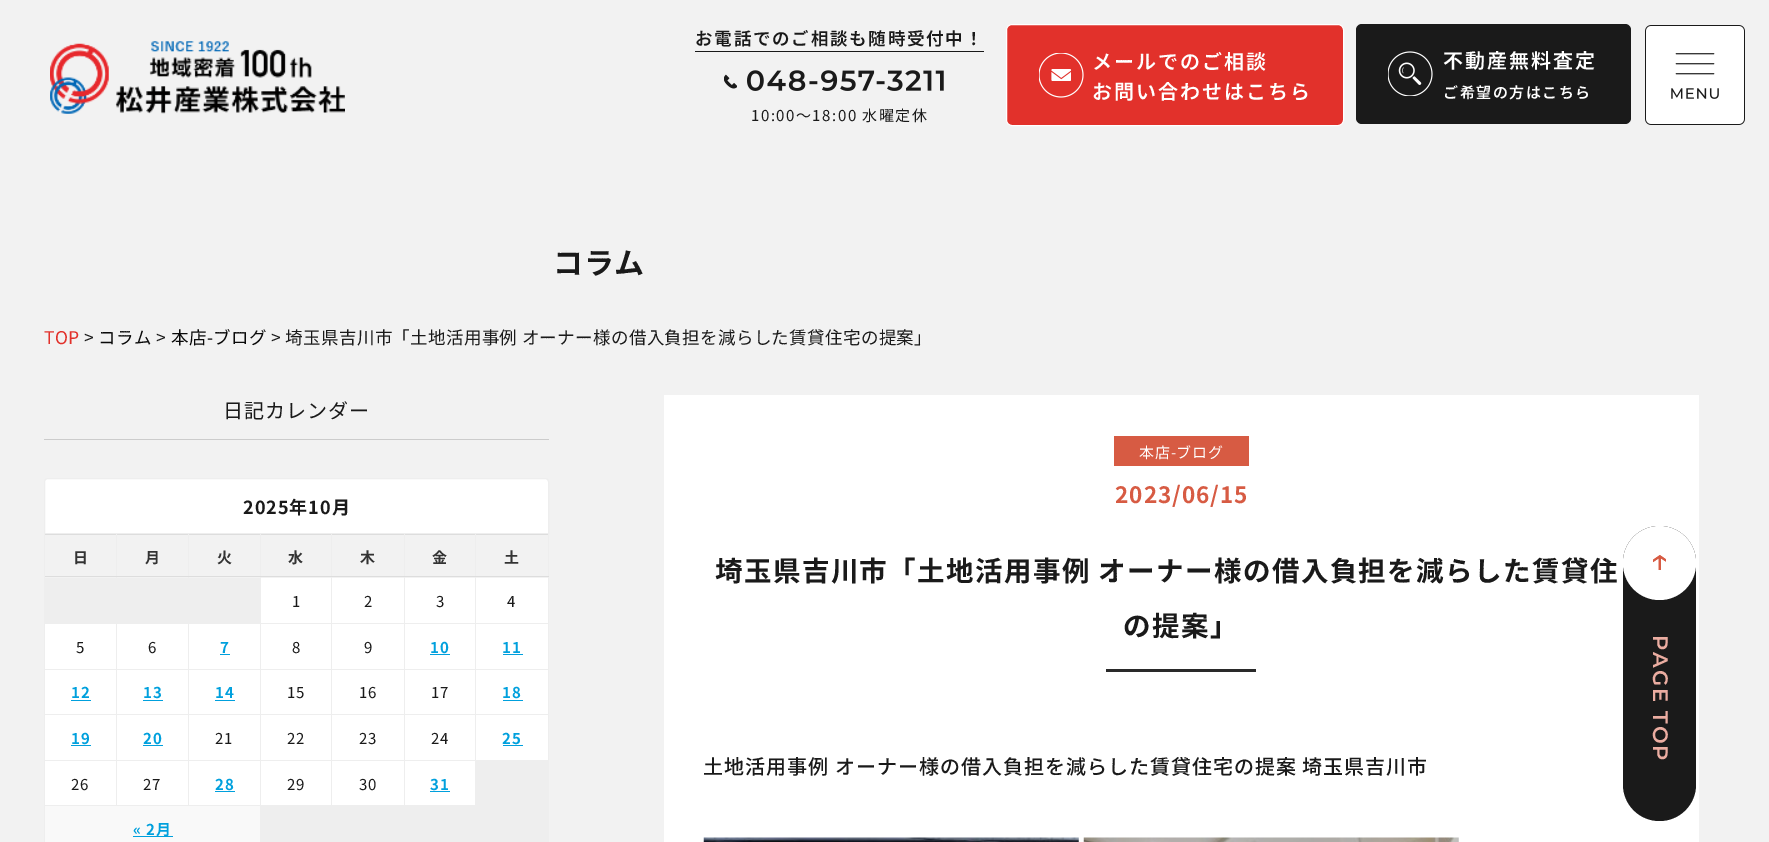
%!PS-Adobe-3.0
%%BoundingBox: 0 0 1769 842
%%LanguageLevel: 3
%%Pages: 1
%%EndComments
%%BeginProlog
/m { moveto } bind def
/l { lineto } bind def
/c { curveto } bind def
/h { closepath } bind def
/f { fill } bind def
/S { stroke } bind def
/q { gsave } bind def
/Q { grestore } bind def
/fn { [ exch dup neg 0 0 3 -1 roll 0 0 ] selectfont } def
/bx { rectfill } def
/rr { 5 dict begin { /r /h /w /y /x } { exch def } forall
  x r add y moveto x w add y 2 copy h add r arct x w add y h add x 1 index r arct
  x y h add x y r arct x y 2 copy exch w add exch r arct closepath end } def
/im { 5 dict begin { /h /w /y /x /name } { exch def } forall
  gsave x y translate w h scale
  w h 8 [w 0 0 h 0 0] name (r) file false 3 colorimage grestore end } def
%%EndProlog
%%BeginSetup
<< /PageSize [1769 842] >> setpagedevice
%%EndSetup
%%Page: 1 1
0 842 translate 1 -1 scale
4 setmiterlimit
0.949 setgray
0 0 1769 842 bx
(image0.raw) 50 41 295 73 im
0.102 setgray
695 51 289 1 bx
/NotoSansJP-SemiBold 17.5 fn
695 45 m 1.75 0 (お電話でのご相談も随時受付中！) ashow
(image1.raw) 724 70 220 21 im
/NotoSansJP-Regular 15 fn
751 121 m 1.5 0 (10:00～18:00 水曜定休) ashow
0.886 0.192 0.169 setrgbcolor
1006.5 24.5 337 101 5.5 rr q f Q
1 setgray
S
(image2.raw) 1039 53 45 45 im
/NotoSansJP-SemiBold 20 fn
1092 69 m 2 0 (メールでのご相談) ashow
1092 99 m 2 0 (お問い合わせはこちら) ashow
0.102 setgray
1356 24 275 100 6 rr f
(image3.raw) 1388 51 45 45 im
1 setgray
1443 68 m 2 0 (不動産無料査定) ashow
/NotoSansJP-SemiBold 15 fn
1443 98 m 1.5 0 (ご希望の方はこちら) ashow
(image4.raw) 1645 25 100 100 im
/NotoSansJP-Bold 30 fn
0.102 setgray
553 274 m 0.5 0 (コラム) ashow
/NotoSansJP-Regular 17.5 fn
0.886 0.192 0.169 setrgbcolor
44 344 m 0.35 0 (TOP) ashow
0.102 setgray
84 344 m 0.35 0 (>) ashow
0.035 setgray
98 344 m 0.35 0 (コラム) ashow
0.102 setgray
156 344 m 0.35 0 (>) ashow
0.035 setgray
171 344 m 0.35 0 (本店-ブログ) ashow
0.102 setgray
271 344 m 0.35 0 (> 埼玉県吉川市「土地活用事例 オーナー様の借入負担を減らした賃貸住宅の提案」) ashow
0.8 setgray
44 439 505 1 bx
/NotoSansJP-Regular 20 fn
0.102 setgray
223 418 m 1 0 (日記カレンダー) ashow
1 setgray
48 478.5 m 545 478.5 l 547 478.5 548.5 480 548.5 482 c 548.5 533.5 l 44.5 533.5 l 44.5 482 l 44.5 480 46 478.5 48 478.5 c h q f Q
0.933 setgray
S
/NotoSansJP-Bold 18 fn
0.102 setgray
243 514 m 1 0 (2025年10月) ashow
0.867 setgray
44 534 505 1 bx
0.933 setgray
475 623 74 1 bx
475 669 74 1 bx
475 714 74 1 bx
475 760 74 1 bx
548 760 1 46 bx
548 714 1 47 bx
548 669 1 46 bx
548 576 1 94 bx
548 534 1 44 bx
475 805 74 1 bx
475 760 1 46 bx
404 760 72 1 bx
475 714 1 47 bx
404 714 72 1 bx
475 669 1 46 bx
404 669 72 1 bx
475 623 1 47 bx
404 623 72 1 bx
475 576 1 48 bx
0.867 setgray
475 576 74 1 bx
0.933 setgray
475 534 1 44 bx
404 805 72 1 bx
404 760 1 46 bx
331 760 74 1 bx
404 714 1 47 bx
331 714 74 1 bx
404 669 1 46 bx
331 669 74 1 bx
404 623 1 47 bx
331 623 74 1 bx
404 576 1 48 bx
0.867 setgray
404 576 72 1 bx
0.933 setgray
404 534 1 44 bx
1 setgray
261 578 143 45 bx
261 624 143 45 bx
261 670 143 44 bx
261 715 143 45 bx
261 761 143 44 bx
0.933 setgray
331 805 74 1 bx
331 760 1 46 bx
260 760 73 1 bx
331 714 1 47 bx
260 714 73 1 bx
331 669 1 46 bx
260 669 73 1 bx
331 623 1 47 bx
260 623 73 1 bx
331 576 1 48 bx
0.867 setgray
331 576 74 1 bx
0.933 setgray
331 534 1 44 bx
260 805 73 1 bx
260 760 1 46 bx
188 760 73 1 bx
260 714 1 47 bx
188 714 73 1 bx
260 669 1 46 bx
188 669 73 1 bx
260 576 1 94 bx
0.867 setgray
260 576 73 1 bx
0.933 setgray
260 534 1 44 bx
188 805 73 1 bx
188 760 1 46 bx
116 760 73 1 bx
188 714 1 47 bx
116 714 73 1 bx
188 669 1 46 bx
116 669 73 1 bx
188 576 1 94 bx
0.867 setgray
188 576 73 1 bx
0.933 setgray
188 534 1 44 bx
117 578 71 46 bx
116 805 73 1 bx
116 760 1 46 bx
44 760 74 1 bx
116 714 1 47 bx
44 714 74 1 bx
116 669 1 46 bx
44 669 74 1 bx
116 623 1 47 bx
44 623 74 1 bx
116 576 1 48 bx
0.867 setgray
116 576 73 1 bx
0.933 setgray
116 534 1 44 bx
44 805 74 1 bx
44 760 1 82 bx
44 714 1 47 bx
44 669 1 46 bx
44 576 1 94 bx
0.867 setgray
44 576 74 1 bx
0.933 setgray
44 534 1 44 bx
/NotoSansJP-Bold 15 fn
0.2 setgray
73 563 m 1 0 (日) ashow
145 563 m 1 0 (月) ashow
217 563 m 1 0 (火) ashow
288 563 m 1 0 (水) ashow
360 563 m 1 0 (木) ashow
432 563 m 1 0 (金) ashow
504 563 m 1 0 (土) ashow
0.933 setgray
45 578 71 45 bx
189 578 71 46 bx
/NotoSansJP-Regular 15 fn
0.102 setgray
292 607 m 1 0 (1) ashow
364 607 m 1 0 (2) ashow
1 setgray
405 578 70 45 bx
0.102 setgray
436 607 m 1 0 (3) ashow
1 setgray
476 578 72 45 bx
0.102 setgray
507 607 m 1 0 (4) ashow
1 setgray
45 624 71 45 bx
0.102 setgray
76 653 m 1 0 (5) ashow
1 setgray
117 624 71 45 bx
0.102 setgray
148 653 m 1 0 (6) ashow
1 setgray
189 624 71 45 bx
/NotoSansJP-Bold 15 fn
0 0.627 0.867 setrgbcolor
220 653 m 1 0 (7) ashow
220 654 10 1 bx
/NotoSansJP-Regular 15 fn
0.102 setgray
292 653 m 1 0 (8) ashow
364 653 m 1 0 (9) ashow
1 setgray
405 624 70 45 bx
/NotoSansJP-Bold 15 fn
0 0.627 0.867 setrgbcolor
430 653 m 1 0 (10) ashow
430 654 20 1 bx
1 setgray
476 624 72 45 bx
0 0.627 0.867 setrgbcolor
502 653 m 1 0 (11) ashow
503 654 20 1 bx
1 setgray
45 670 71 44 bx
0 0.627 0.867 setrgbcolor
71 698 m 1 0 (12) ashow
71 700 20 1 bx
1 setgray
117 670 71 44 bx
0 0.627 0.867 setrgbcolor
143 698 m 1 0 (13) ashow
143 700 20 1 bx
1 setgray
189 670 71 44 bx
0 0.627 0.867 setrgbcolor
215 698 m 1 0 (14) ashow
215 700 20 1 bx
/NotoSansJP-Regular 15 fn
0.102 setgray
287 698 m 1 0 (15) ashow
359 698 m 1 0 (16) ashow
1 setgray
405 670 70 44 bx
0.102 setgray
431 698 m 1 0 (17) ashow
1 setgray
476 670 72 44 bx
/NotoSansJP-Bold 15 fn
0 0.627 0.867 setrgbcolor
502 698 m 1 0 (18) ashow
503 700 20 1 bx
1 setgray
45 715 71 45 bx
0 0.627 0.867 setrgbcolor
71 744 m 1 0 (19) ashow
71 745 20 1 bx
1 setgray
117 715 71 45 bx
0 0.627 0.867 setrgbcolor
143 744 m 1 0 (20) ashow
143 745 20 1 bx
1 setgray
189 715 71 45 bx
/NotoSansJP-Regular 15 fn
0.102 setgray
215 744 m 1 0 (21) ashow
287 744 m 1 0 (22) ashow
359 744 m 1 0 (23) ashow
1 setgray
405 715 70 45 bx
0.102 setgray
431 744 m 1 0 (24) ashow
1 setgray
476 715 72 45 bx
/NotoSansJP-Bold 15 fn
0 0.627 0.867 setrgbcolor
502 744 m 1 0 (25) ashow
503 745 20 1 bx
1 setgray
45 761 71 44 bx
/NotoSansJP-Regular 15 fn
0.102 setgray
71 790 m 1 0 (26) ashow
1 setgray
117 761 71 44 bx
0.102 setgray
143 790 m 1 0 (27) ashow
1 setgray
189 761 71 44 bx
/NotoSansJP-Bold 15 fn
0 0.627 0.867 setrgbcolor
215 790 m 1 0 (28) ashow
215 791 20 1 bx
/NotoSansJP-Regular 15 fn
0.102 setgray
287 790 m 1 0 (29) ashow
359 790 m 1 0 (30) ashow
1 setgray
405 761 70 44 bx
/NotoSansJP-Bold 15 fn
0 0.627 0.867 setrgbcolor
430 790 m 1 0 (31) ashow
430 791 20 1 bx
0.933 setgray
476 761 72 44 bx
0.976 setgray
45 806 215 36 bx
0 0.627 0.867 setrgbcolor
133 836 40 1 bx
133 835 m 1 0 (« 2月) ashow
0.933 setgray
260 806 288 36 bx
548 805 1 37 bx
1 setgray
664 395 1035 447 bx
0.843 0.357 0.263 setrgbcolor
1114 436 135 30 bx
/NotoSansJP-Regular 15 fn
1 setgray
1139 458 m 0.75 0 (本店-ブログ) ashow
/NotoSansJP-Bold 22.5 fn
0.843 0.357 0.263 setrgbcolor
1115 503 m 1 0 (2023/06/15) ashow
/NotoSansJP-Bold 27.5 fn
0.102 setgray
715 581 m 1.4 0 (埼玉県吉川市「土地活用事例 オーナー様の借入負担を減らした賃貸住) ashow
1123 636 m 1.4 0 (の提案」) ashow
0.165 setgray
1106 669 150 3 bx
/NotoSansJP-Medium 20 fn
0.102 setgray
703 774 m 1 0 (土地活用事例 オーナー様の借入負担を減らした賃貸住宅の提案 埼玉県吉川市) ashow
(image5.raw) 703 837 376 5 im
(image6.raw) 1083 837 376 5 im
1623 526 73 295 36.5 rr f
1 setgray
1623 526 73 74 36.5 rr f
(image7.raw) 1653 555 13 15 im
(image8.raw) 1653 555 13 15 im
/Montserrat-SemiBold 21 fn
0.922 0.678 0.631 setrgbcolor
q 1653 635 translate 90 rotate 0 0 m -1 0 32 2 0 (PAGE TOP) awidthshow Q
showpage
%%EOF
